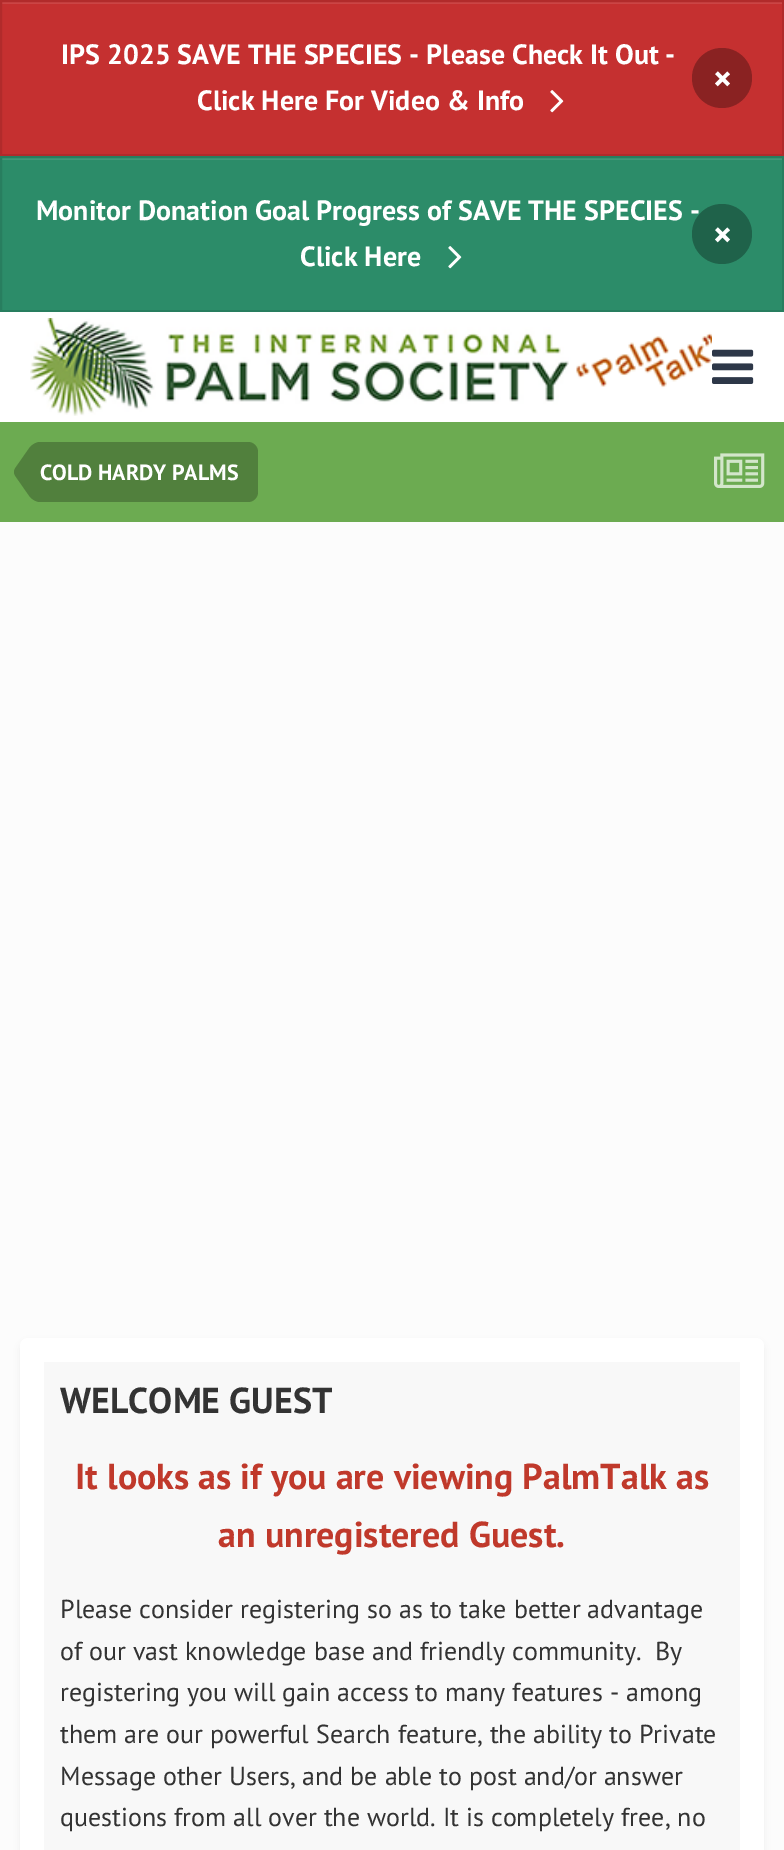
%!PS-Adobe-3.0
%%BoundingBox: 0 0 784 1850
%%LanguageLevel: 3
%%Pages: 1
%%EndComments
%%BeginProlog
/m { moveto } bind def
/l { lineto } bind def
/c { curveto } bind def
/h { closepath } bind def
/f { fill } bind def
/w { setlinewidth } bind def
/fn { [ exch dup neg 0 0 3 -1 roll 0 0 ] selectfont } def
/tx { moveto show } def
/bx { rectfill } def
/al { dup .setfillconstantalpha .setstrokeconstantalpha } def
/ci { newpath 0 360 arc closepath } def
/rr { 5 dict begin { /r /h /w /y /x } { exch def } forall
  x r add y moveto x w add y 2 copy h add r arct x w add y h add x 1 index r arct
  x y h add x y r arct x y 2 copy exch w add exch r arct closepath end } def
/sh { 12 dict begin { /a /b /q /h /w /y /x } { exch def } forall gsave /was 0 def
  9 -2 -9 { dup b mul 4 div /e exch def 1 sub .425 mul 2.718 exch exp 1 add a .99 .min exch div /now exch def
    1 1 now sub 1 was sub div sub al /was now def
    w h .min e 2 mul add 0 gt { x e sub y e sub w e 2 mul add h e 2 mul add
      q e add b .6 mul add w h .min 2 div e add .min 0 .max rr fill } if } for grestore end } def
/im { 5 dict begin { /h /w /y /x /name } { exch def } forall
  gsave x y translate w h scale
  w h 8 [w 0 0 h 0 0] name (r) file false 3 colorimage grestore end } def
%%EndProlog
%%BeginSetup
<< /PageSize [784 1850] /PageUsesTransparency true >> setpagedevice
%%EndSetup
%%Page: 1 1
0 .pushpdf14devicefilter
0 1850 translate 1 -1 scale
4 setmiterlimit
0.988 setgray
0 0 784 1850 bx
0.773 0.188 0.188 setrgbcolor
2 4 780 150 bx
0.796 0.271 0.271 setrgbcolor
2 2 780 2 bx
0.694 0.169 0.169 setrgbcolor
2 w
1 1 782 154 rectstroke
/PTSans-Bold 28 fn
1 setgray
(IPS 2025 SAVE THE SPECIES - Please Check It Out -) 61 64 tx
(Click Here For Video & Info) 197 110 tx
(image0.raw) 550 90 14 23 im
0.541 0.133 0.133 setrgbcolor
722 78 30 ci f
/PTSans-Bold 36 fn
1 setgray
(×) 713 91 tx
0.173 0.549 0.412 setrgbcolor
2 160 780 150 bx
0.255 0.596 0.471 setrgbcolor
2 158 780 2 bx
0.157 0.494 0.373 setrgbcolor
1 157 782 154 rectstroke
/PTSans-Bold 28 fn
1 setgray
(Monitor Donation Goal Progress of SAVE THE SPECIES -) 36 220 tx
(Click Here) 300 266 tx
(image1.raw) 448 246 14 23 im
0.122 0.384 0.29 setrgbcolor
722 234 30 ci f
/PTSans-Bold 36 fn
1 setgray
(×) 713 247 tx
0 312 784 110 bx
(image2.raw) 30 318 682 98 im
(image3.raw) 712 349 42 35 im
0.424 0.671 0.318 setrgbcolor
0 422 784 100 bx
0.318 0.502 0.239 setrgbcolor
40 442 m 248 442 l 253.5 442 258 446.5 258 452 c 258 492 l 258 497.5 253.5 502 248 502 c 40 502 l h f
40 472 m 40 502 l 36.5 502 33 500 30 497 c 15 475.5 l 14.5 474.5 14 473.5 14 472 c h 40 472 m 14 472 l 14 470.5 14.5 469.5 15 468.5 c 30 447 l 33 444 36.5 442 40 442 c h f
/PTSans-Bold 22 fn
1 setgray
(COLD HARDY PALMS) 40 480 tx
(image4.raw) 714 453 51 35 im
0.2 setgray
22 1344 740 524 6 4 0.1 sh
1 setgray
20 1338 744 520 8 rr f
0.973 setgray
44 1362 696 488 bx
/PTSans-Bold 36 fn
0.2 setgray
(WELCOME GUEST) 60 1413 tx
0.753 0.224 0.169 setrgbcolor
(It looks as if you are viewing PalmTalk as) 75 1489 tx
(an unregistered Guest.) 218 1547 tx
/PTSans-Regular 26 fn
0.2 setgray
(Please consider registering so as to take better advantage) 60 1618 tx
(of our vast knowledge base and friendly community.  By) 60 1660 tx
(registering you will gain access to many features - among) 60 1701 tx
(them are our powerful Search feature, the ability to Private) 60 1743 tx
(Message other Users, and be able to post and/or answer) 60 1785 tx
(questions from all over the world. It is completely free, no) 60 1826 tx
.poppdf14devicefilter showpage
%%EOF
